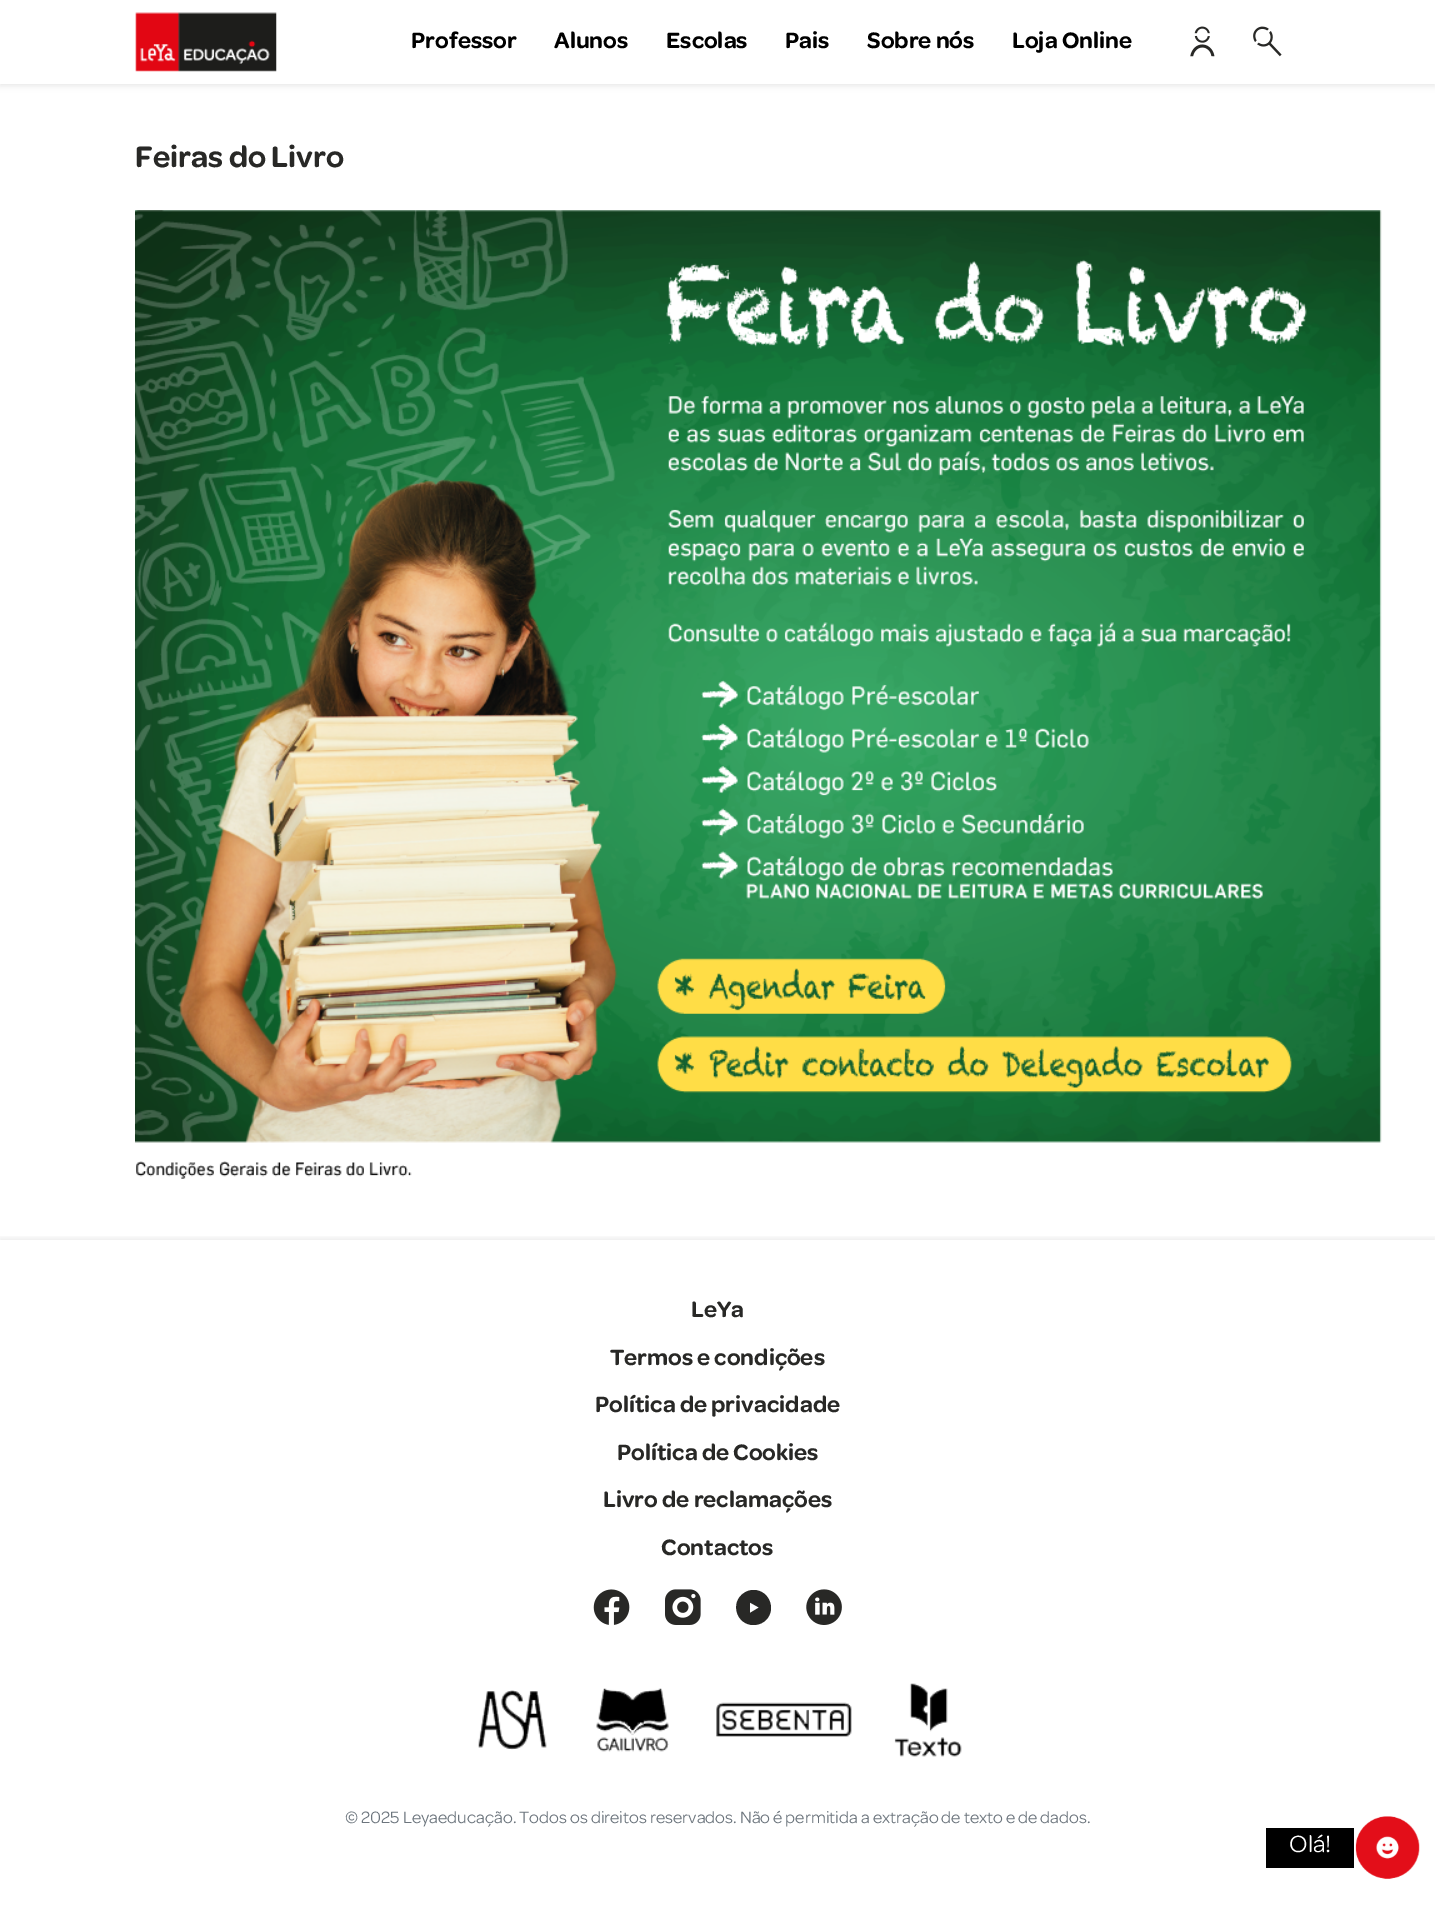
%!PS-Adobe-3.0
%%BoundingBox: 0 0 1435 1906
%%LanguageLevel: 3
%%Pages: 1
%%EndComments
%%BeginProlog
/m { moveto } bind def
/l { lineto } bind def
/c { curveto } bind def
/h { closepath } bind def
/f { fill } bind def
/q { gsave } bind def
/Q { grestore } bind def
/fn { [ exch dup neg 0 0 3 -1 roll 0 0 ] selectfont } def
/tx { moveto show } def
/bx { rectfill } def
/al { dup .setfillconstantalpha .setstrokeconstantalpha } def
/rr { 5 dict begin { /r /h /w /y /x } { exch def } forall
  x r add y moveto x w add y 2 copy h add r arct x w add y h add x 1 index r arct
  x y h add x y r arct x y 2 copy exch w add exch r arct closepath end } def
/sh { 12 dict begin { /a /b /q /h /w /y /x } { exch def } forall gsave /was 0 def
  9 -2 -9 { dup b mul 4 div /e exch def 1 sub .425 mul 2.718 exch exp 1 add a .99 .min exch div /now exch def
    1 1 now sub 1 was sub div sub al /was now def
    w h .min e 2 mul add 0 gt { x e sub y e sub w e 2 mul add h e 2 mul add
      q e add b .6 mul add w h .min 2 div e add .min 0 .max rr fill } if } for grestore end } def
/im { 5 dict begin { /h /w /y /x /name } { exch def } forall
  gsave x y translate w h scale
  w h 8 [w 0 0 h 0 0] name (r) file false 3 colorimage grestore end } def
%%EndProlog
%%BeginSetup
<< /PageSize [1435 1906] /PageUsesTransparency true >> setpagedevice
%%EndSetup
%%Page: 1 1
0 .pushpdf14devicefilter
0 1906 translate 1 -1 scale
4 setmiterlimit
1 setgray
0 0 1435 1906 bx
0 setgray
0 3 1435 83 0 3 0.09 sh
1 setgray
0 0 1435 84 bx
(image0.raw) 135 12 142 60 im
/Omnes-SemiBold 23.75 fn
0 setgray
(Professor) 411 48 tx
(Alunos) 554 48 tx
(Escolas) 666 48 tx
(Pais) 785 48 tx
(Sobre nós) 867 48 tx
(Loja Online) 1012 48 tx
(image1.raw) 1190 26 25 31 im
(image2.raw) 1253 26 29 31 im
/Omnes-SemiBold 31.5 fn
0.157 0.157 0.149 setrgbcolor
(Feiras do Livro) 135 167 tx
(image3.raw) 135 210 1247 969 im
q
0 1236 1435 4 rectclip
0 setgray
0 1238 1435 661 0 3 0.07 sh
Q
/Omnes-SemiBold 23.75 fn
(LeYa) 691 1317 tx
(Termos e condições) 610 1365 tx
(Política de privacidade) 595 1412 tx
(Política de Cookies) 617 1460 tx
(Livro de reclamações) 603 1507 tx
(Contactos) 661 1555 tx
(image4.raw) 593 1589 37 36 im
(image5.raw) 665 1589 36 36 im
753.5 1590 m 750 1590 747 1591 744 1593 c 729.5 1602.5 736.5 1625 753.5 1625 c 757 1625 760.5 1624 763.5 1622 c 777.5 1612.5 770.5 1590 753.5 1590 c h 750 1602.5 m 759 1607.5 l 750 1613 l h f
(image6.raw) 806 1589 36 36 im
(image7.raw) 478 1690 69 60 im
(image8.raw) 596 1688 73 64 im
(image9.raw) 716 1702 136 35 im
(image10.raw) 894 1683 68 74 im
/Omnes-Regular 17.5 fn
0.424 0.459 0.49 setrgbcolor
(© 2025 Leyaeducação. Todos os direitos reservados. Não é permitida a extração de texto e de dados.) 345 1823 tx
0 setgray
1266 1828 88 40 bx
/Omnes-Regular 25 fn
1 setgray
(Olá!) 1289 1852 tx
(image11.raw) 1355 1816 65 63 im
.poppdf14devicefilter showpage
%%EOF
